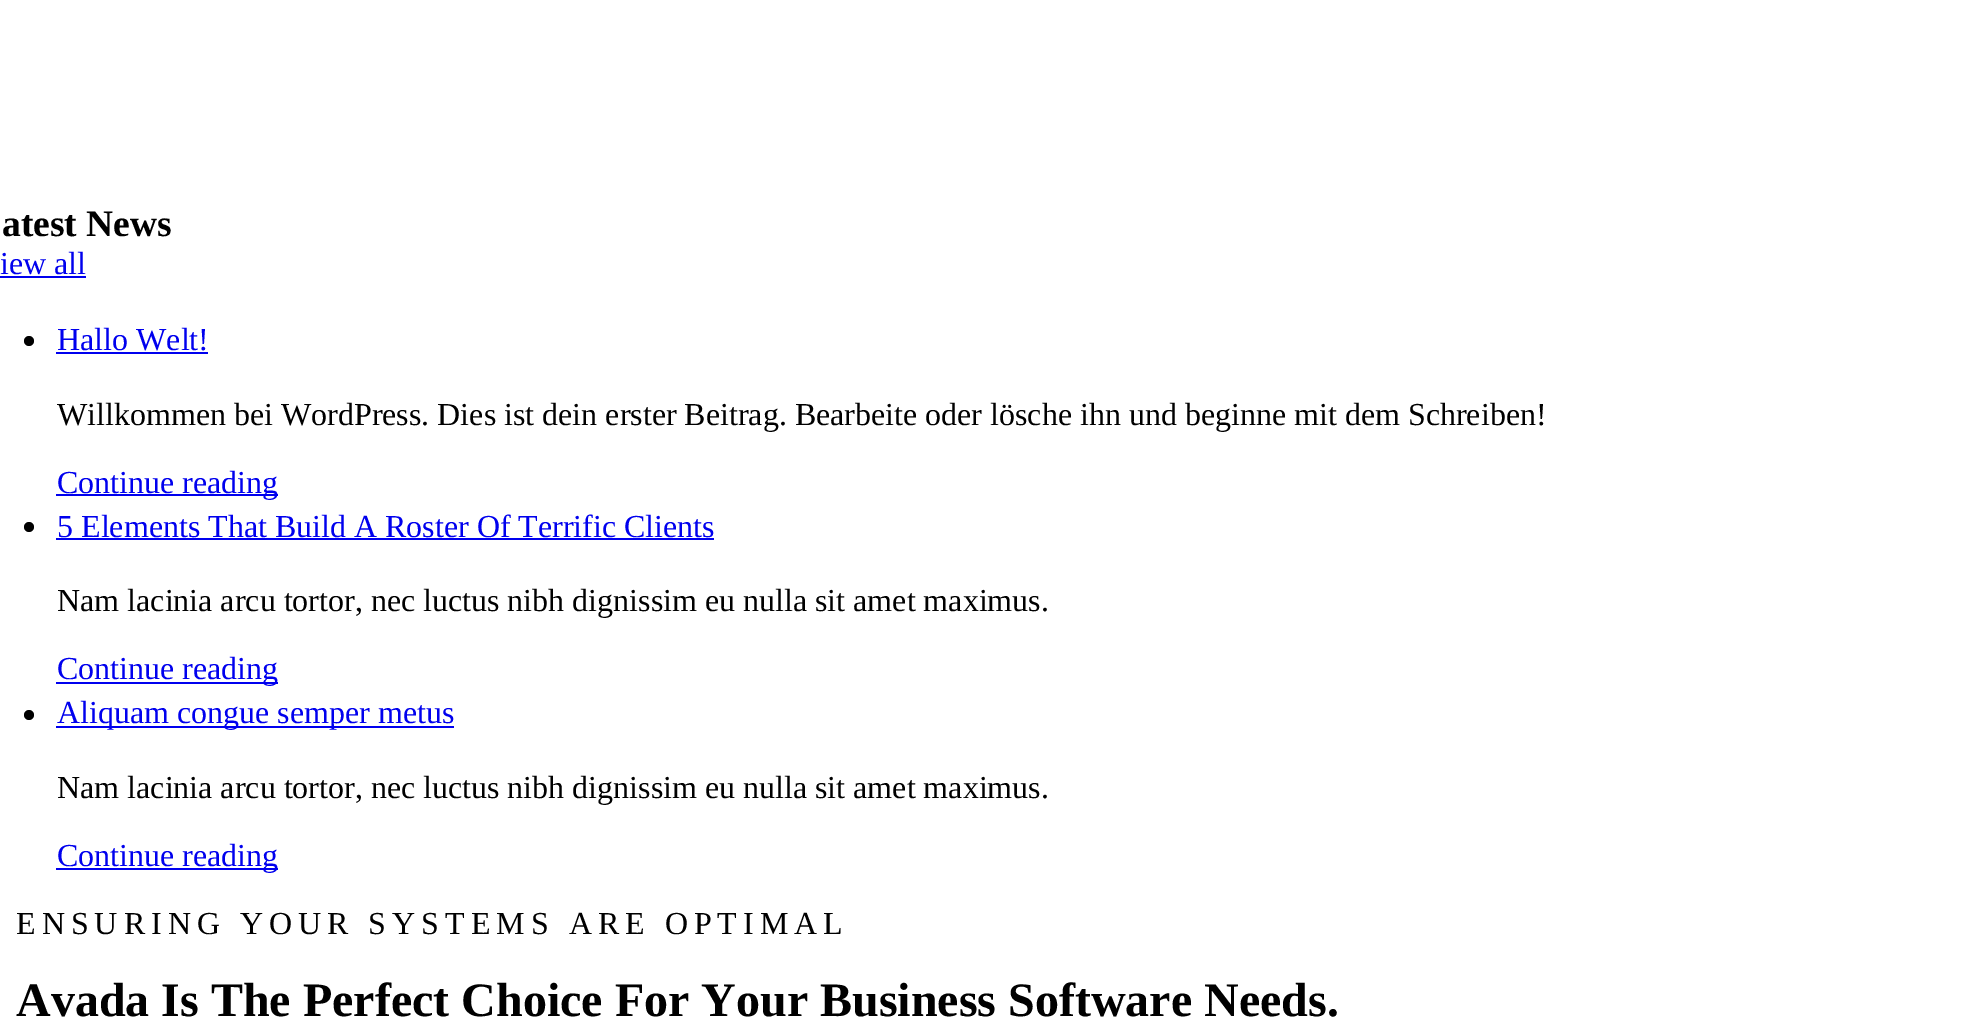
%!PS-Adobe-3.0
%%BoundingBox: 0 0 1984 1025
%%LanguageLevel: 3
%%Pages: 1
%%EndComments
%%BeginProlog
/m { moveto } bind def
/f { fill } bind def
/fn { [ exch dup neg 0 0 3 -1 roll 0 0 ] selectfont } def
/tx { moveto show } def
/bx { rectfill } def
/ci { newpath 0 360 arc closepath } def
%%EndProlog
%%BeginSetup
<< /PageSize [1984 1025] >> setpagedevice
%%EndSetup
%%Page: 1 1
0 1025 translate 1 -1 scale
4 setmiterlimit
1 setgray
0 0 1984 1025 bx
/LiberationSerif-Bold 37.5 fn
0 setgray
(atest News) 2 236 tx
/LiberationSerif-Regular 32 fn
0 0 0.933 setrgbcolor
(iew all) 0 274 tx
0 276 86 2 bx
0 setgray
29 341 5 ci f
0 0 0.933 setrgbcolor
(Hallo Welt!) 57 350 tx
56 352 152 2 bx
0 setgray
(Willkommen bei WordPress. Dies ist dein erster Beitrag. Bearbeite oder lösche ihn und beginne mit dem Schreiben!) 57 425 tx
0 0 0.933 setrgbcolor
56 494 222 2 bx
(Continue reading) 57 493 tx
0 setgray
29 527 5 ci f
0 0 0.933 setrgbcolor
(5 Elements That Build A Roster Of Terrific Clients) 57 537 tx
56 538 658 2 bx
0 setgray
(Nam lacinia arcu tortor, nec luctus nibh dignissim eu nulla sit amet maximus.) 57 611 tx
0 0 0.933 setrgbcolor
56 682 222 2 bx
(Continue reading) 57 679 tx
0 setgray
29 715 5 ci f
0 0 0.933 setrgbcolor
56 726 398 2 bx
(Aliquam congue semper metus) 57 723 tx
0 setgray
(Nam lacinia arcu tortor, nec luctus nibh dignissim eu nulla sit amet maximus.) 57 798 tx
0 0 0.933 setrgbcolor
56 868 222 2 bx
(Continue reading) 57 866 tx
0 setgray
16 934 m 6 0 (ENSURING YOUR SYSTEMS ARE OPTIMAL) ashow
/LiberationSerif-Bold 48 fn
(Avada Is The Perfect Choice For Your Business Software Needs.) 16 1016 tx
showpage
%%EOF
